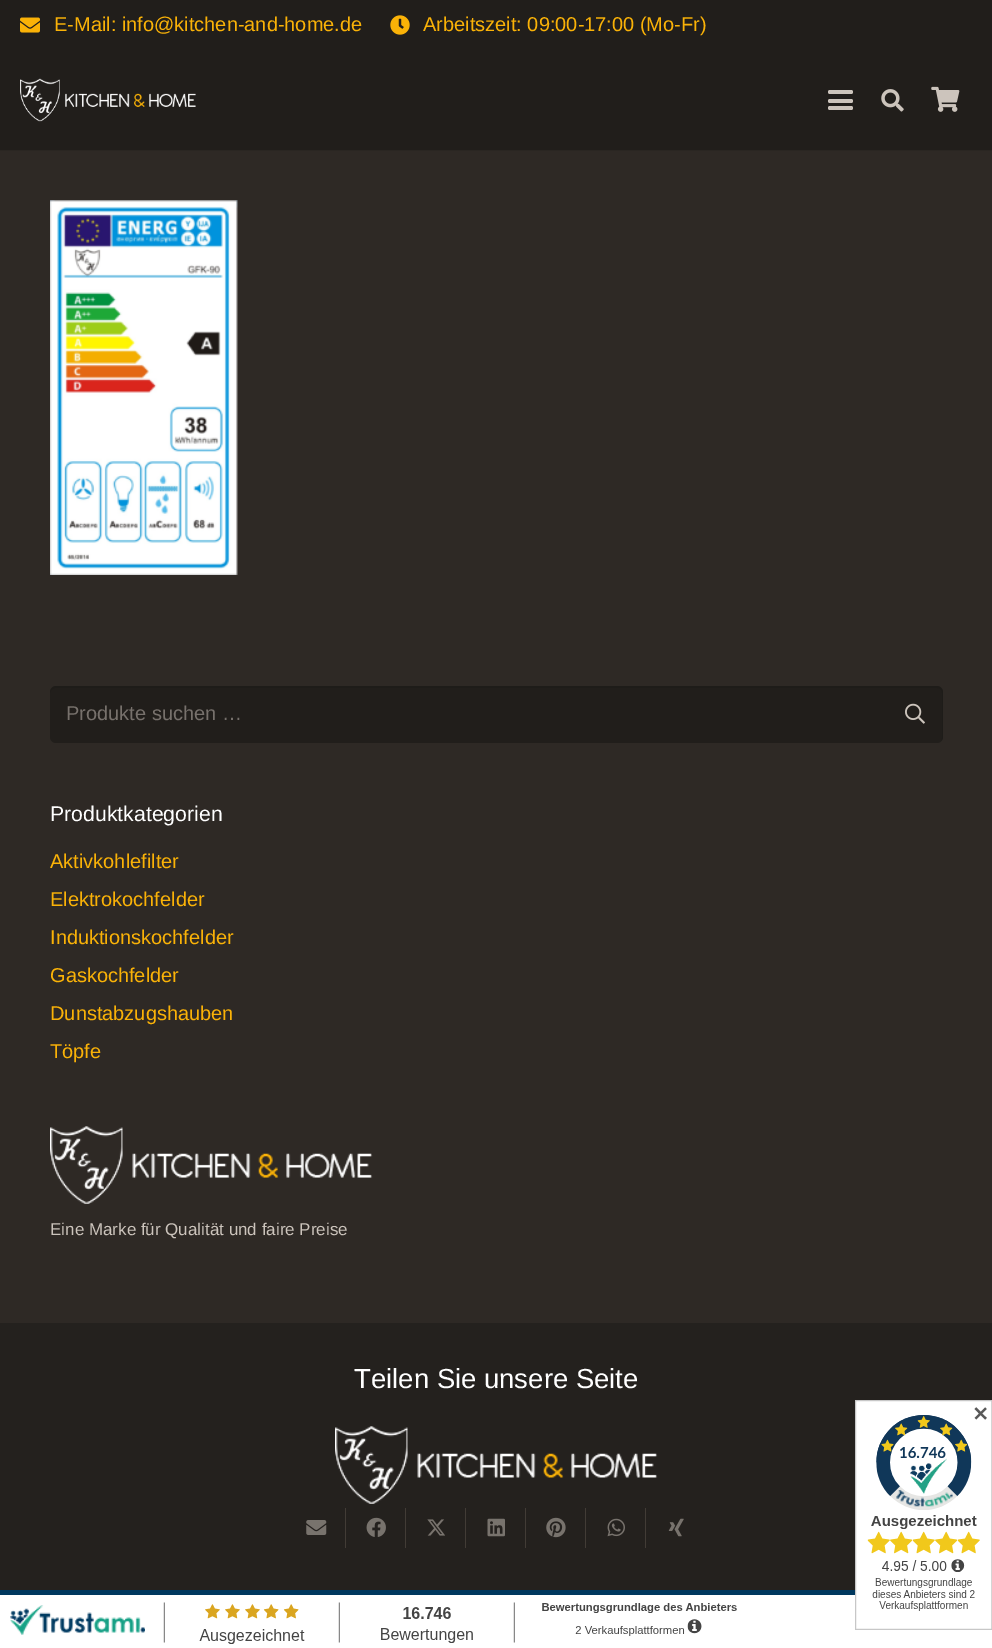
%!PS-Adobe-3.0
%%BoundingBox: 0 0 992 1648
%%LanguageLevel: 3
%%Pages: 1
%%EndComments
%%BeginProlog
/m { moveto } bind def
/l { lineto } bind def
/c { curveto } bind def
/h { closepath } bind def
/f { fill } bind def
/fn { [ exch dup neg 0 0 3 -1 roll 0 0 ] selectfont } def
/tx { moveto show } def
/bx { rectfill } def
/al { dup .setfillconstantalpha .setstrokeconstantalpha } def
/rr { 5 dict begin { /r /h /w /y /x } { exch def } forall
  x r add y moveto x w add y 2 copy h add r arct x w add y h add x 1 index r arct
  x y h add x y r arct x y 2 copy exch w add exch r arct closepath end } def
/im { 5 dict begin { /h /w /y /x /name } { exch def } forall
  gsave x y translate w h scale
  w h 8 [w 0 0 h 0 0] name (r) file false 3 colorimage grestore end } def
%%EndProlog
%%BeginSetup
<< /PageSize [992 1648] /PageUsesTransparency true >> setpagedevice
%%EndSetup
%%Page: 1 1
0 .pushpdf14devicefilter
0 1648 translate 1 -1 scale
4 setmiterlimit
0.18 0.161 0.145 setrgbcolor
0 0 992 1648 bx
0.129 0.118 0.106 setrgbcolor
0 0 992 150 bx
(image0.raw) 20 17 20 16 im
/LiberationSans-Regular 20 fn
0.98 0.698 0.027 setrgbcolor
(E-Mail: info@kitchen-and-home.de) 54 31 tx
(image1.raw) 390 15 20 20 im
(Arbeitszeit: 09:00-17:00 \(Mo-Fr\)) 423 31 tx
0.165 0.149 0.133 setrgbcolor
0 150 m 0 151 l 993 151 l 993 51 l 992 51 l 992 150 l h f
(image2.raw) 20 78 176 44 im
0.8 0.769 0.737 setrgbcolor
828 99 25 4 2 rr f
828 90 25 4 2 rr f
828 106 25 4 2 rr f
(image3.raw) 881 89 23 23 im
(image4.raw) 931 86 29 26 im
(image5.raw) 50 200 188 375 im
0.129 0.118 0.106 setrgbcolor
50 686 893 57 6 rr f
0.08 al
0 setgray
56 688 m 936 688 l 940 688 942 690 942 694 c 942 738 l 942 739 942 740 941 741 c 942 740 943 739 943 737 c 943 692 l 943 689 940 686 937 686 c 56 686 l 53 686 50 689 50 692 c 50 694 l 50 690 53 688 56 688 c h f
1 al
0.467 0.443 0.424 setrgbcolor
(Produkte suchen …) 66 720 tx
(image6.raw) 905 703 20 21 im
/LiberationSans-Regular 21.25 fn
1 setgray
(Produktkategorien) 50 821 tx
/LiberationSans-Regular 20 fn
0.98 0.698 0.027 setrgbcolor
(Aktivkohlefilter) 50 868 tx
(Elektrokochfelder) 50 906 tx
(Induktionskochfelder) 50 944 tx
(Gaskochfelder) 50 982 tx
(Dunstabzugshauben) 50 1020 tx
(Töpfe) 50 1058 tx
(image7.raw) 50 1126 323 78 im
/LiberationSans-Regular 17 fn
0.8 0.769 0.737 setrgbcolor
(Eine Marke für Qualität und faire Preise) 50 1235 tx
0.141 0.129 0.118 setrgbcolor
0 1323 992 267 bx
/LiberationSans-Regular 27.5 fn
1 setgray
(Teilen Sie unsere Seite) 354 1388 tx
(image8.raw) 335 1426 323 78 im
0.259 0.235 0.212 setrgbcolor
345 1508 1 40 bx
(image9.raw) 306 1520 21 15 im
405 1508 1 40 bx
(image10.raw) 366 1517 20 20 im
465 1508 1 40 bx
(image11.raw) 427 1519 18 17 im
525 1508 1 40 bx
(image12.raw) 487 1518 18 19 im
585 1508 1 40 bx
(image13.raw) 546 1517 20 21 im
645 1508 1 40 bx
(image14.raw) 607 1518 18 19 im
(image15.raw) 668 1518 16 19 im
(image17.raw) 0 1590 992 58 im
(image16.raw) 855 1400 137 230 im
/DejaVuSans-Bold 20 fn
0.349 setgray
(✕) 972 1421 tx
.poppdf14devicefilter showpage
%%EOF
